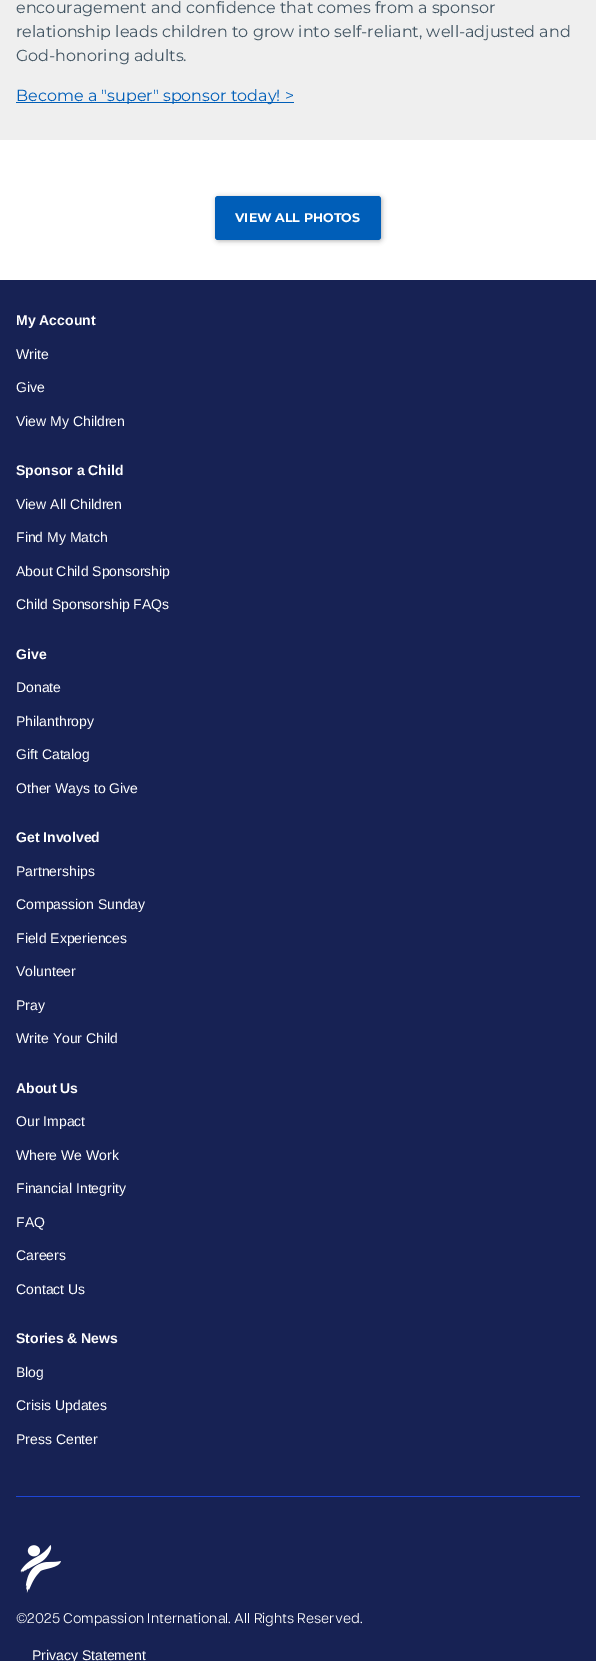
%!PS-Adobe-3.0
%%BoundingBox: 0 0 596 1661
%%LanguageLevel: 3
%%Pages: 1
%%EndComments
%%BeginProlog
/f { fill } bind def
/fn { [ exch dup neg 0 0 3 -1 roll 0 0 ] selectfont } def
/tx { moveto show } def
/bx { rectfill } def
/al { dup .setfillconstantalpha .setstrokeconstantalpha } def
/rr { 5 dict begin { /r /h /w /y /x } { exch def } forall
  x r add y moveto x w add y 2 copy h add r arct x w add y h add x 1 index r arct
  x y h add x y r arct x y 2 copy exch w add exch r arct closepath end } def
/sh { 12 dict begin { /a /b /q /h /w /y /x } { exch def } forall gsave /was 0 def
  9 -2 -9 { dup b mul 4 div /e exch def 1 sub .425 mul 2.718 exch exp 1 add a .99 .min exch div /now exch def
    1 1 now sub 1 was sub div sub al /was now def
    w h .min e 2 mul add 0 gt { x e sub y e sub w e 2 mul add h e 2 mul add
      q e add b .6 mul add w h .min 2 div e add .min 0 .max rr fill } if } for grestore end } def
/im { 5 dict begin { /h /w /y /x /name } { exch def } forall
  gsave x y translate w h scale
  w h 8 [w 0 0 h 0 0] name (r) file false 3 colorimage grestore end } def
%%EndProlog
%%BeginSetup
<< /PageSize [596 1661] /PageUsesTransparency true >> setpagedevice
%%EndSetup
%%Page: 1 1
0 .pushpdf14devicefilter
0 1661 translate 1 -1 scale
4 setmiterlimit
1 setgray
0 0 596 1661 bx
0.937 setgray
0 0 596 140 bx
/Montserrat-Regular 16 fn
0.259 0.333 0.388 setrgbcolor
(encouragement and confidence that comes from a sponsor) 16 13 tx
(relationship leads children to grow into self-reliant, well-adjusted and) 16 37 tx
(God-honoring adults.) 16 61 tx
0 0.369 0.722 setrgbcolor
16 102 278 1 bx
(Become a "super" sponsor today! >) 16 101 tx
0 setgray
216 197 166 44 3 2.5 0.3 sh
0 0.369 0.722 setrgbcolor
215 196 166 44 3 rr f
/Montserrat-Bold 12.6 fn
1 setgray
(VIEW ALL PHOTOS) 235 222 tx
0.09 0.133 0.329 setrgbcolor
0 280 596 1381 bx
0.114 0.275 0.847 setrgbcolor
16 1496 564 1 bx
/LiberationSans-Bold 14 fn
1 setgray
(My Account) 16 325 tx
/LiberationSans-Regular 14 fn
(Write) 16 359 tx
(Give) 16 392 tx
(View My Children) 16 426 tx
/LiberationSans-Bold 14 fn
(Sponsor a Child) 16 475 tx
/LiberationSans-Regular 14 fn
(View All Children) 16 509 tx
(Find My Match) 16 542 tx
(About Child Sponsorship) 16 576 tx
(Child Sponsorship FAQs) 16 609 tx
/LiberationSans-Bold 14 fn
(Give) 16 659 tx
/LiberationSans-Regular 14 fn
(Donate) 16 692 tx
(Philanthropy) 16 726 tx
(Gift Catalog) 16 759 tx
(Other Ways to Give) 16 793 tx
/LiberationSans-Bold 14 fn
(Get Involved) 16 842 tx
/LiberationSans-Regular 14 fn
(Partnerships) 16 876 tx
(Compassion Sunday) 16 909 tx
(Field Experiences) 16 943 tx
(Volunteer) 16 976 tx
(Pray) 16 1010 tx
(Write Your Child) 16 1043 tx
/LiberationSans-Bold 14 fn
(About Us) 16 1093 tx
/LiberationSans-Regular 14 fn
(Our Impact) 16 1126 tx
(Where We Work) 16 1160 tx
(Financial Integrity) 16 1193 tx
(FAQ) 16 1227 tx
(Careers) 16 1260 tx
(Contact Us) 16 1294 tx
/LiberationSans-Bold 14 fn
(Stories & News) 16 1343 tx
/LiberationSans-Regular 14 fn
(Blog) 16 1377 tx
(Crisis Updates) 16 1410 tx
(Press Center) 16 1444 tx
(image0.raw) 20 1545 41 48 im
/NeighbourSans-Regular 14 fn
(©2025 Compassion International. All Rights Reserved.) 16 1623 tx
/LiberationSans-Regular 14 fn
(Privacy Statement) 32 1660 tx
.poppdf14devicefilter showpage
%%EOF
